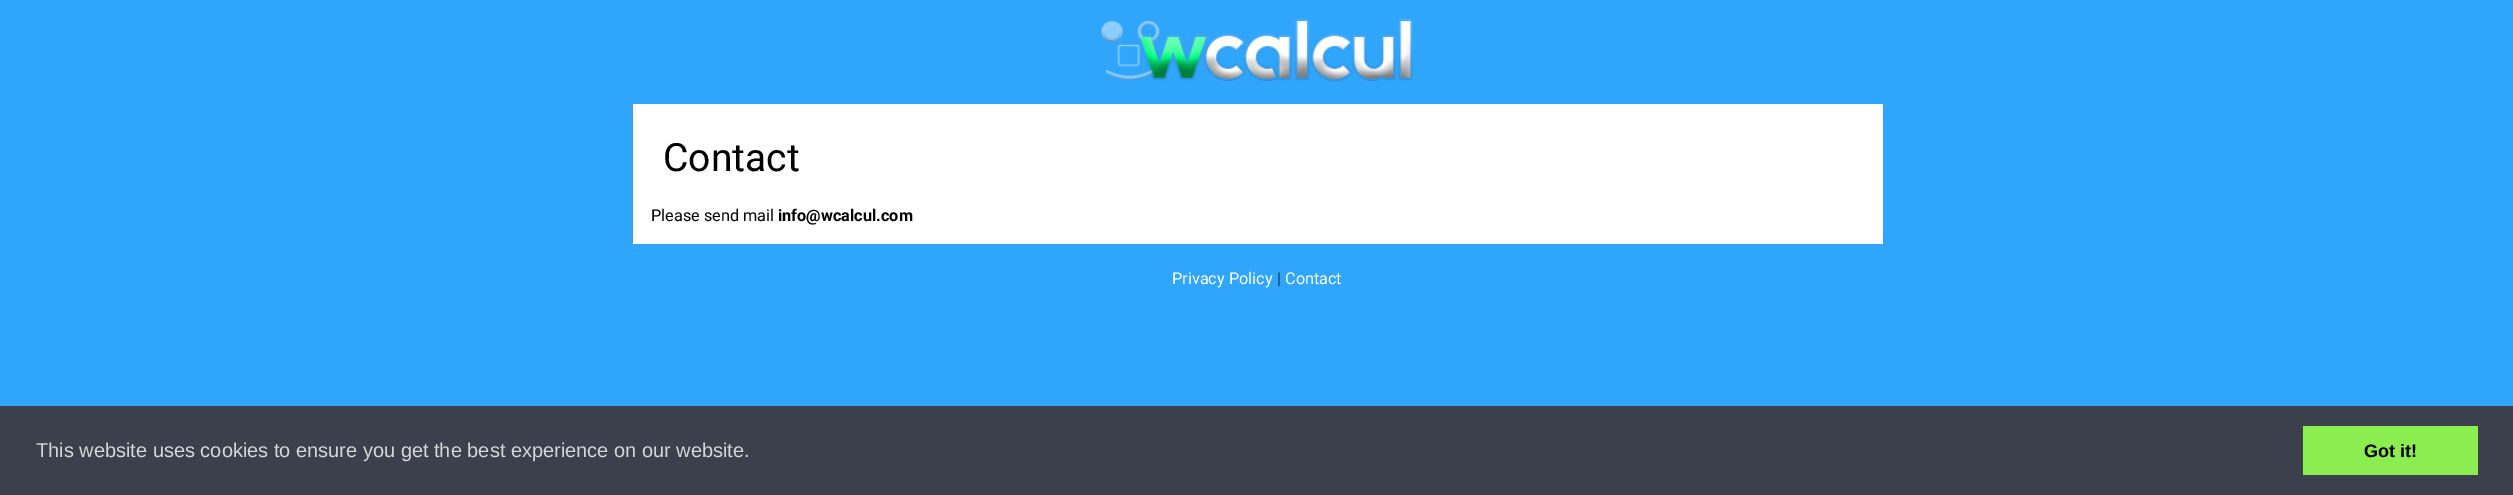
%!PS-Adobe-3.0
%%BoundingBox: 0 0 2513 495
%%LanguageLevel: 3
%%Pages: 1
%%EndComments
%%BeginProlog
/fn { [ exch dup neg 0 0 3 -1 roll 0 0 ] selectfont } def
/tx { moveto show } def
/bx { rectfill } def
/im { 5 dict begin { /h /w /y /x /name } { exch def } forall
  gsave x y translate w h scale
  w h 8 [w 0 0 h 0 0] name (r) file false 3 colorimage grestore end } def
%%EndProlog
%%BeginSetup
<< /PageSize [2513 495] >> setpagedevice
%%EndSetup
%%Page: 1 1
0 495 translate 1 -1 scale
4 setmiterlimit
0.188 0.647 0.988 setrgbcolor
0 0 2513 495 bx
(image0.raw) 1101 18 312 64 im
1 setgray
633 104 1250 140 bx
/Roboto-Regular 39 fn
0 setgray
(Contact) 663 171 tx
/Roboto-Regular 16.25 fn
(Please send mail) 651 221 tx
/Roboto-Bold 16.25 fn
(info@wcalcul.com) 778 221 tx
/Roboto-Regular 16.25 fn
1 setgray
(Privacy Policy) 1172 284 tx
0.2 0.114 0.208 setrgbcolor
(|) 1277 284 tx
1 setgray
(Contact) 1285 284 tx
0.235 0.251 0.302 setrgbcolor
0 406 2513 89 bx
/LiberationSans-Regular 20 fn
0.839 setgray
(This website uses cookies to ensure you get the best experience on our website.) 36 457 tx
0.545 0.929 0.31 setrgbcolor
2303 426 175 49 bx
/LiberationSans-Bold 18 fn
0 setgray
(Got it!) 2364 457 tx
showpage
%%EOF
